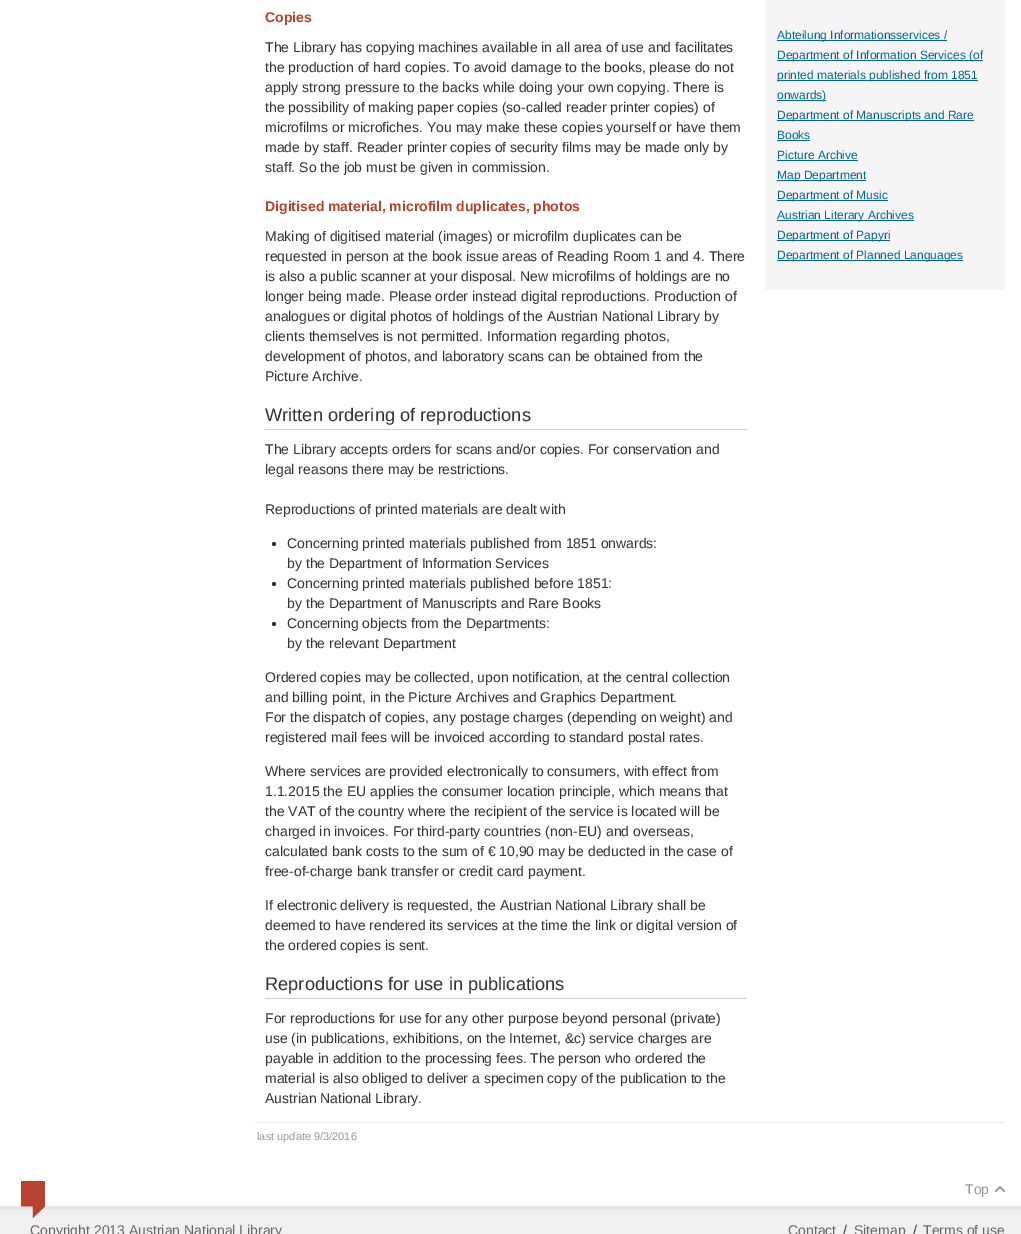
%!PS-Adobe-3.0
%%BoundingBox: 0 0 1021 1234
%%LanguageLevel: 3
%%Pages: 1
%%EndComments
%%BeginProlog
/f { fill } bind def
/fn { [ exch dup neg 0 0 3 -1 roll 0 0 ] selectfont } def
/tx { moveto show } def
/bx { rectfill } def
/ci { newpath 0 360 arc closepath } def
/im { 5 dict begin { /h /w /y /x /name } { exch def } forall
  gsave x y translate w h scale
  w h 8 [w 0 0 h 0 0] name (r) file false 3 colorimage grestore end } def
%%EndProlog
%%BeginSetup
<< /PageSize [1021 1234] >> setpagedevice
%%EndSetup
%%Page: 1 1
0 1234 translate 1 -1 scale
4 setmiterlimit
1 setgray
0 0 1021 1234 bx
/LiberationSans-Bold 14 fn
0.71 0.255 0.161 setrgbcolor
(Copies) 265 22 tx
/LiberationSans-Regular 14 fn
0.2 setgray
(The Library has copying machines available in all area of use and facilitates) 265 52 tx
(the production of hard copies. To avoid damage to the books, please do not) 265 72 tx
(apply strong pressure to the backs while doing your own copying. There is) 265 92 tx
(the possibility of making paper copies \(so-called reader printer copies\) of) 265 112 tx
(microfilms or microfiches. You may make these copies yourself or have them) 265 132 tx
(made by staff. Reader printer copies of security films may be made only by) 265 152 tx
(staff. So the job must be given in commission.) 265 172 tx
/LiberationSans-Bold 14 fn
0.71 0.255 0.161 setrgbcolor
(Digitised material, microfilm duplicates, photos) 265 211 tx
/LiberationSans-Regular 14 fn
0.2 setgray
(Making of digitised material \(images\) or microfilm duplicates can be) 265 241 tx
(requested in person at the book issue areas of Reading Room 1 and 4. There) 265 261 tx
(is also a public scanner at your disposal. New microfilms of holdings are no) 265 281 tx
(longer being made. Please order instead digital reproductions. Production of) 265 301 tx
(analogues or digital photos of holdings of the Austrian National Library by) 265 321 tx
(clients themselves is not permitted. Information regarding photos,) 265 341 tx
(development of photos, and laboratory scans can be obtained from the) 265 361 tx
(Picture Archive.) 265 381 tx
0.8 setgray
265 429 482 1 bx
/LiberationSans-Regular 18.25 fn
0.2 setgray
(Written ordering of reproductions) 265 421 tx
/LiberationSans-Regular 14 fn
(The Library accepts orders for scans and/or copies. For conservation and) 265 454 tx
(legal reasons there may be restrictions.) 265 474 tx
(Reproductions of printed materials are dealt with) 265 514 tx
274 544 2 ci f
(Concerning printed materials published from 1851 onwards:) 287 548 tx
(by the Department of Information Services) 287 568 tx
274 584 2 ci f
(Concerning printed materials published before 1851:) 287 588 tx
(by the Department of Manuscripts and Rare Books) 287 608 tx
274 624 2 ci f
(Concerning objects from the Departments:) 287 628 tx
(by the relevant Department) 287 648 tx
(Ordered copies may be collected, upon notification, at the central collection) 265 682 tx
(and billing point, in the Picture Archives and Graphics Department.) 265 702 tx
(For the dispatch of copies, any postage charges \(depending on weight\) and) 265 722 tx
(registered mail fees will be invoiced according to standard postal rates.) 265 742 tx
(Where services are provided electronically to consumers, with effect from) 265 776 tx
(1.1.2015 the EU applies the consumer location principle, which means that) 265 796 tx
(the VAT of the country where the recipient of the service is located will be) 265 816 tx
(charged in invoices. For third-party countries \(non-EU\) and overseas,) 265 836 tx
(calculated bank costs to the sum of € 10,90 may be deducted in the case of) 265 856 tx
(free-of-charge bank transfer or credit card payment.) 265 876 tx
(If electronic delivery is requested, the Austrian National Library shall be) 265 910 tx
(deemed to have rendered its services at the time the link or digital version of) 265 930 tx
(the ordered copies is sent.) 265 950 tx
0.8 setgray
265 998 482 1 bx
/LiberationSans-Regular 18.25 fn
0.2 setgray
(Reproductions for use in publications) 265 990 tx
/LiberationSans-Regular 14 fn
(For reproductions for use for any other purpose beyond personal \(private\)) 265 1023 tx
(use \(in publications, exhibitions, on the Internet, &c\) service charges are) 265 1043 tx
(payable in addition to the processing fees. The person who ordered the) 265 1063 tx
(material is also obliged to deliver a specimen copy of the publication to the) 265 1083 tx
(Austrian National Library.) 265 1103 tx
0.961 setgray
765 0 240 290 bx
0 0.4 0.6 setrgbcolor
777 40 170 1 bx
/LiberationSans-Regular 12 fn
(Abteilung Informationsservices /) 777 39 tx
777 60 206 1 bx
(Department of Information Services \(of) 777 59 tx
777 80 201 1 bx
(printed materials published from 1851) 777 79 tx
777 100 49 1 bx
(onwards\)) 777 99 tx
777 120 197 1 bx
(Department of Manuscripts and Rare) 777 119 tx
(Books) 777 139 tx
777 140 33 1 bx
(Picture Archive) 777 159 tx
777 160 81 1 bx
777 180 89 1 bx
(Map Department) 777 179 tx
777 200 111 1 bx
(Department of Music) 777 199 tx
777 220 137 1 bx
(Austrian Literary Archives) 777 219 tx
777 240 113 1 bx
(Department of Papyri) 777 239 tx
777 260 186 1 bx
(Department of Planned Languages) 777 259 tx
0.929 setgray
255 1122 750 1 bx
/LiberationSans-Regular 11 fn
0.6 setgray
(last update 9/3/2016) 257 1140 tx
0.941 setgray
0 1210 1021 24 bx
0.906 setgray
0 1206 1021 4 bx
(image0.raw) 21 1181 24 37 im
/LiberationSans-Regular 14 fn
0.6 setgray
(Top) 965 1194 tx
(image1.raw) 995 1186 10 6 im
0.4 setgray
(Copyright 2013 Austrian National Library) 30 1235 tx
(Contact) 788 1235 tx
0.2 setgray
(/) 843 1235 tx
0.4 setgray
(Sitemap) 854 1235 tx
0.2 setgray
(/) 913 1235 tx
0.4 setgray
(Terms of use) 923 1235 tx
showpage
%%EOF
